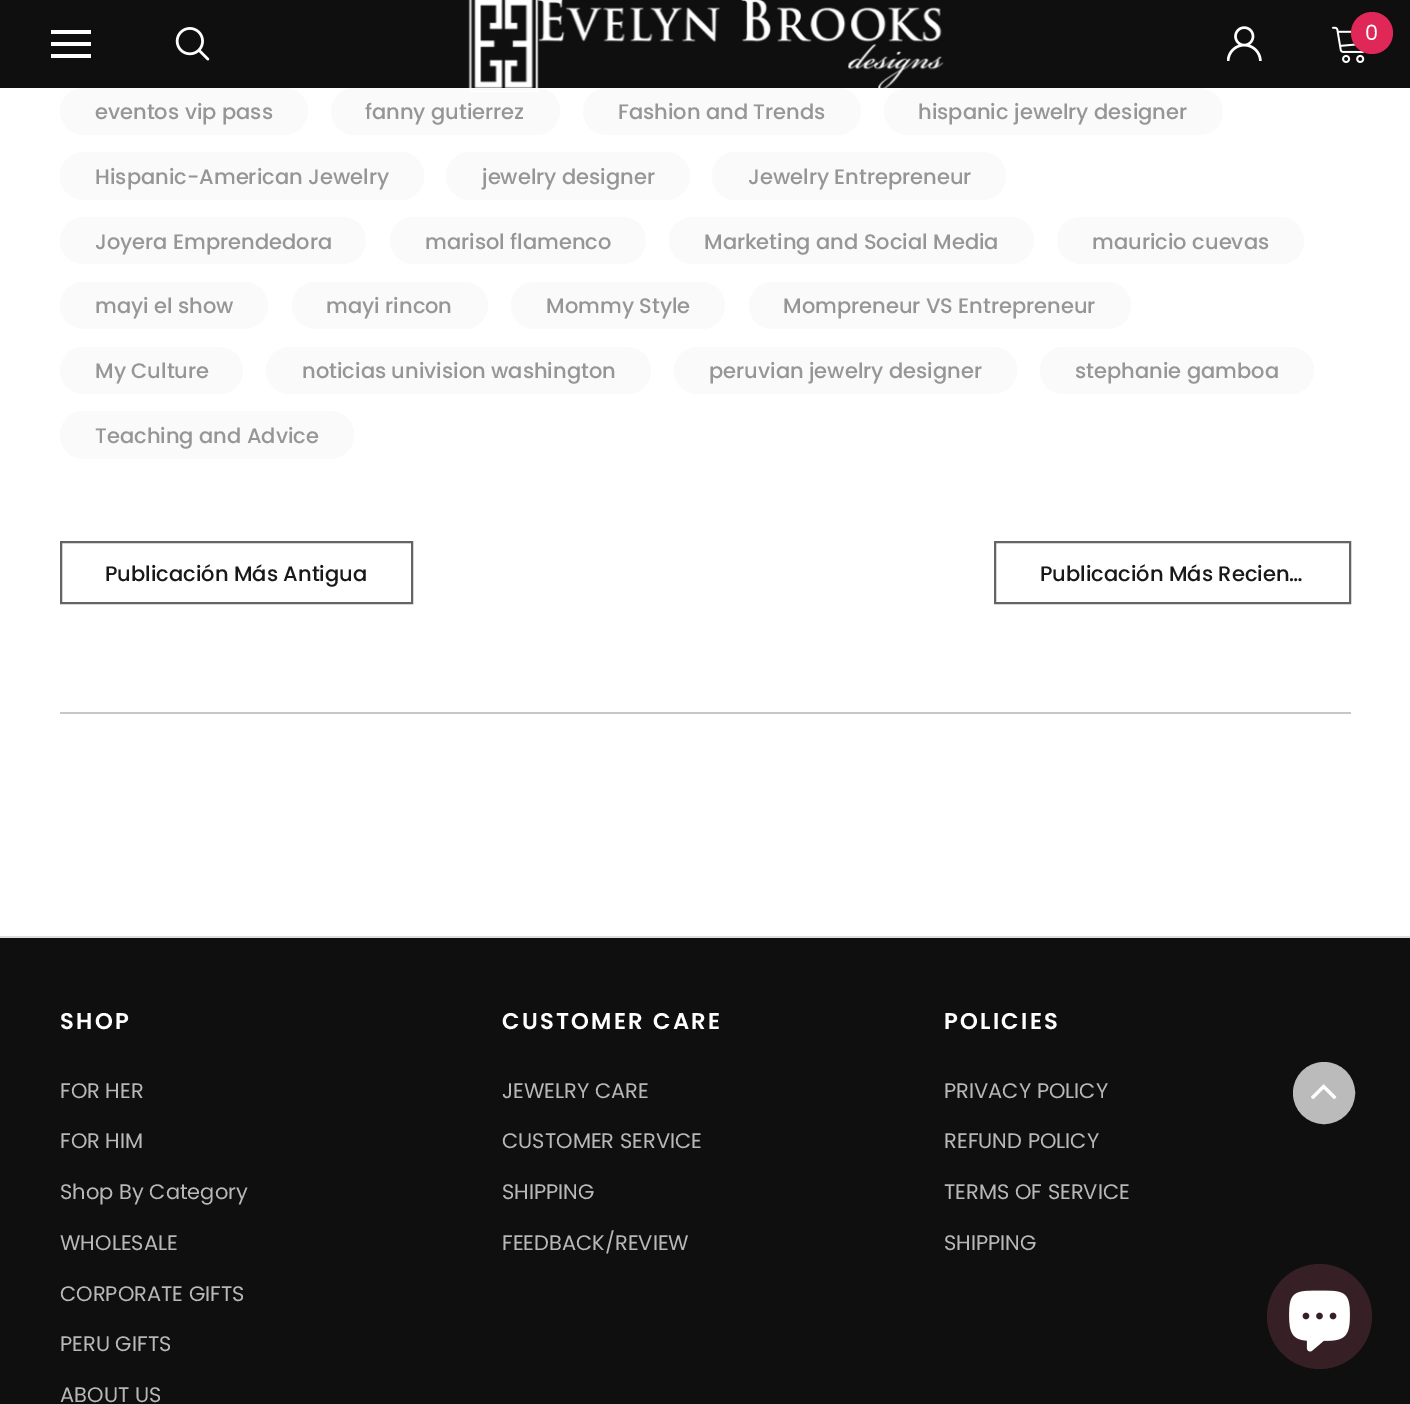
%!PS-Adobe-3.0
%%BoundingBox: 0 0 1410 1404
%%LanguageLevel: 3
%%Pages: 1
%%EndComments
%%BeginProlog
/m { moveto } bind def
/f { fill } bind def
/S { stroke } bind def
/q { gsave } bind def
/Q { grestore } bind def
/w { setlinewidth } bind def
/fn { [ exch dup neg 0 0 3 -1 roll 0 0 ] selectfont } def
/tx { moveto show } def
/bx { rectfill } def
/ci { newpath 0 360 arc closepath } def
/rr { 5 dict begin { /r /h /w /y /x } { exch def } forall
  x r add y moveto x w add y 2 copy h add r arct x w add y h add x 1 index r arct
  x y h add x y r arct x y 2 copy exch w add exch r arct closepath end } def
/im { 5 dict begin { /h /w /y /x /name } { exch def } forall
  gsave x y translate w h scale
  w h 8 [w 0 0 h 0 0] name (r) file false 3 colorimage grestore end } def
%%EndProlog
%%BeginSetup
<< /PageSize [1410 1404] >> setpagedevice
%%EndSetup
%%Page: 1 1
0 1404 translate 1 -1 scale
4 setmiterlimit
1 setgray
0 0 1410 1404 bx
0.059 setgray
0 0 1410 88 bx
1 setgray
51 42 40 4 bx
51 30 40 4 bx
51 54 40 4 bx
(image0.raw) 175 27 35 34 im
0.98 setgray
331 88 229 47 23.5 rr f
583 88 278 47 23.5 rr f
884 88 339 47 23.5 rr f
(image1.raw) 468 0 476 92 im
(image2.raw) 1227 26 35 35 im
(image3.raw) 1332 26 33 37 im
0.878 0.157 0.345 setrgbcolor
1372 33 21 ci f
/Poppins-Regular 21 fn
1 setgray
(0) 1365 40 tx
0.98 setgray
60 88 248 47 23.5 rr f
/Poppins-Medium 21 fn
0.588 setgray
(eventos vip pass) 95 119 tx
(fanny gutierrez) 365 119 tx
(Fashion and Trends) 618 119 tx
(hispanic jewelry designer) 918 119 tx
0.98 setgray
60 152 364 48 24 rr f
0.588 setgray
(Hispanic-American Jewelry) 95 184 tx
0.98 setgray
446 152 244 48 24 rr f
0.588 setgray
(jewelry designer) 482 184 tx
0.98 setgray
712 152 294 48 24 rr f
0.588 setgray
(Jewelry Entrepreneur) 748 184 tx
0.98 setgray
60 217 306 47 23.5 rr f
0.588 setgray
(Joyera Emprendedora) 95 249 tx
0.98 setgray
390 217 256 47 23.5 rr f
0.588 setgray
(marisol flamenco) 425 249 tx
0.98 setgray
669 217 365 47 23.5 rr f
0.588 setgray
(Marketing and Social Media) 704 249 tx
0.98 setgray
1057 217 247 47 23.5 rr f
0.588 setgray
(mauricio cuevas) 1092 249 tx
0.98 setgray
60 282 208 47 23.5 rr f
0.588 setgray
(mayi el show) 95 313 tx
0.98 setgray
292 282 196 47 23.5 rr f
0.588 setgray
(mayi rincon) 326 313 tx
0.98 setgray
511 282 214 47 23.5 rr f
0.588 setgray
(Mommy Style) 546 313 tx
0.98 setgray
749 282 382 47 23.5 rr f
0.588 setgray
(Mompreneur VS Entrepreneur) 783 313 tx
0.98 setgray
60 347 183 47 23.5 rr f
0.588 setgray
(My Culture) 95 378 tx
0.98 setgray
266 347 385 47 23.5 rr f
0.588 setgray
(noticias univision washington) 302 378 tx
0.98 setgray
674 347 343 47 23.5 rr f
0.588 setgray
(peruvian jewelry designer) 709 378 tx
0.98 setgray
1040 347 274 47 23.5 rr f
0.588 setgray
(stephanie gamboa) 1075 378 tx
0.98 setgray
60 411 294 48 24 rr f
0.588 setgray
(Teaching and Advice) 95 443 tx
0.78 setgray
60 712 1291 2 bx
0.392 setgray
2 w
61 542 351 61 rectstroke
0.098 setgray
(Publicación Más Antigua) 105 581 tx
0.392 setgray
995 542 355 61 rectstroke
0.098 setgray
(Publicación Más Recien…) 1040 581 tx
0.867 setgray
0 936 1410 2 bx
0.059 setgray
0 938 1410 466 bx
/Poppins-SemiBold 22.75 fn
1 setgray
60 1029 m 2.25 0 (SHOP) ashow
/Poppins-Regular 21 fn
0.722 setgray
(FOR HER) 60 1098 tx
(FOR HIM) 60 1148 tx
(Shop By Category) 60 1199 tx
(WHOLESALE) 60 1250 tx
(CORPORATE GIFTS) 60 1301 tx
(PERU GIFTS) 60 1351 tx
(ABOUT US) 60 1402 tx
/Poppins-SemiBold 22.75 fn
1 setgray
502 1029 m 2.25 0 (CUSTOMER CARE) ashow
/Poppins-Regular 21 fn
0.722 setgray
(JEWELRY CARE) 502 1098 tx
(CUSTOMER SERVICE) 502 1148 tx
(SHIPPING) 502 1199 tx
(FEEDBACK/REVIEW) 502 1250 tx
/Poppins-SemiBold 22.75 fn
1 setgray
944 1029 m 2.25 0 (POLICIES) ashow
/Poppins-Regular 21 fn
0.722 setgray
(PRIVACY POLICY) 944 1098 tx
(REFUND POLICY) 944 1148 tx
(TERMS OF SERVICE) 944 1199 tx
(SHIPPING) 944 1250 tx
0.733 setgray
1324 1093 30 ci q f Q
S
(image4.raw) 1311 1084 26 15 im
0.212 0.125 0.145 setrgbcolor
1319.5 1316.5 52.5 ci f
(image5.raw) 1289 1290 61 62 im
showpage
%%EOF
